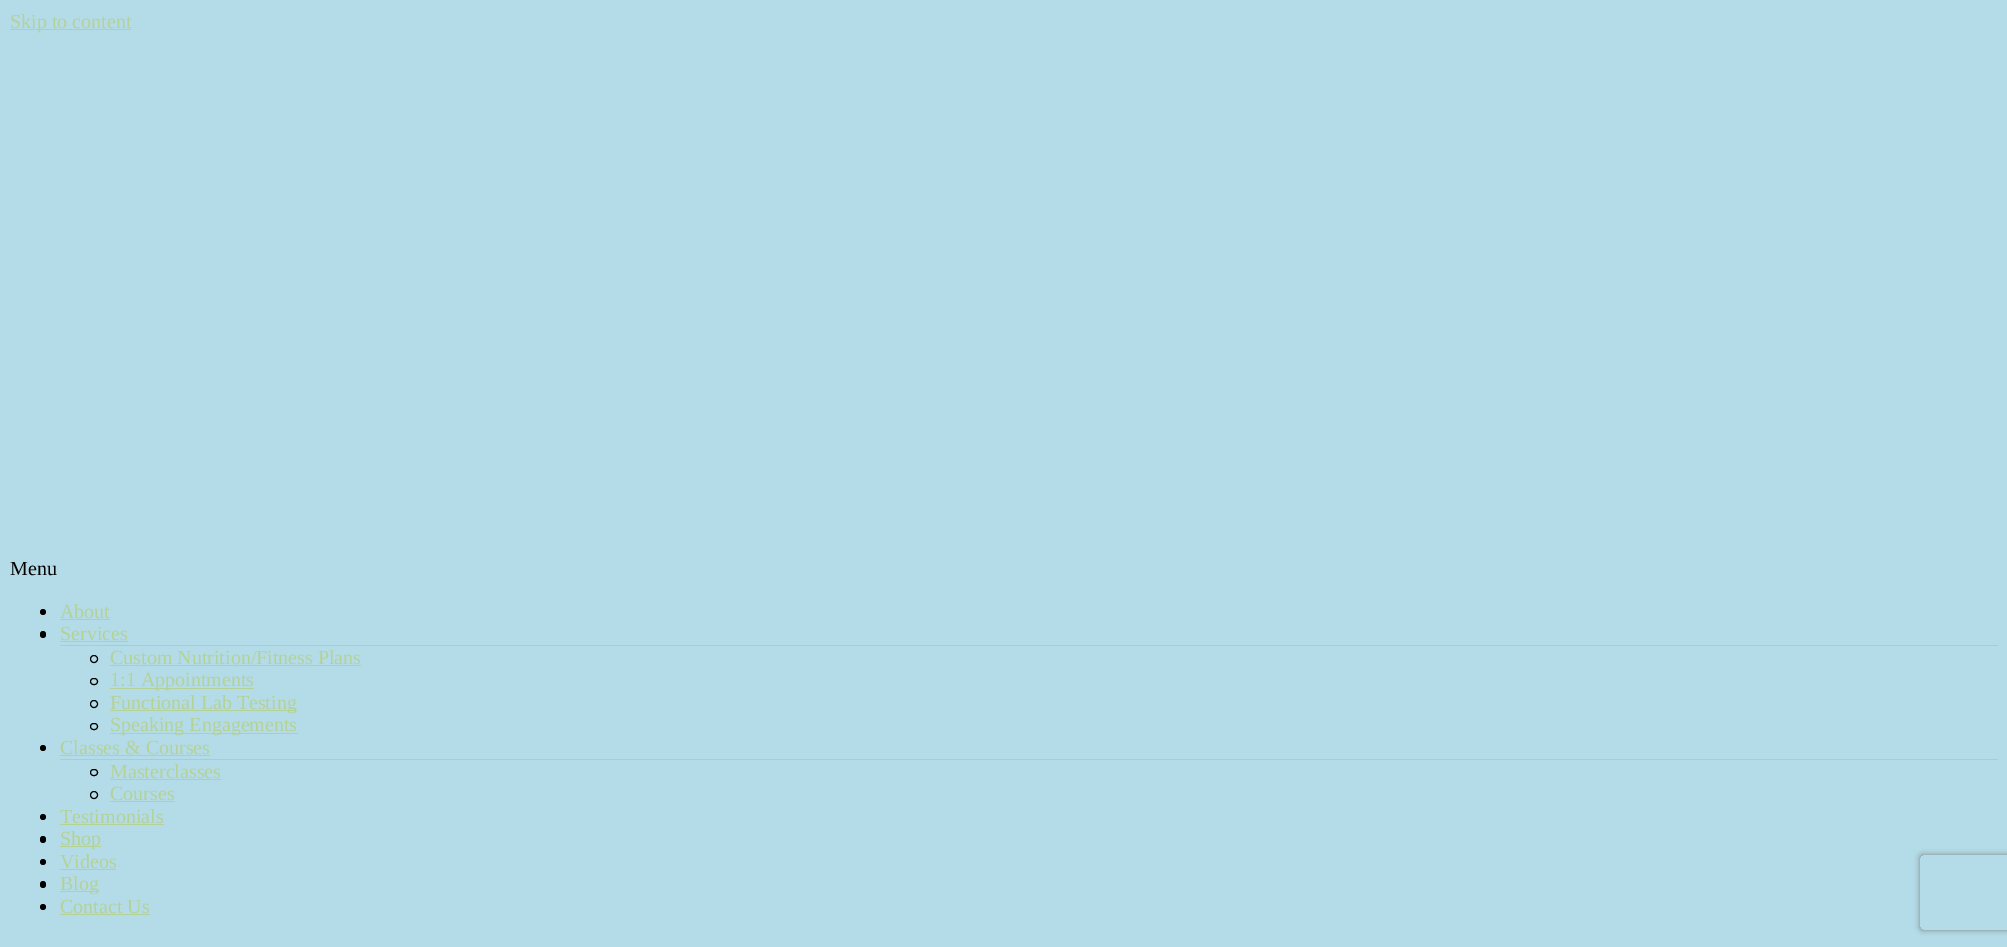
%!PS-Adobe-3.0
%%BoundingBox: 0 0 2007 947
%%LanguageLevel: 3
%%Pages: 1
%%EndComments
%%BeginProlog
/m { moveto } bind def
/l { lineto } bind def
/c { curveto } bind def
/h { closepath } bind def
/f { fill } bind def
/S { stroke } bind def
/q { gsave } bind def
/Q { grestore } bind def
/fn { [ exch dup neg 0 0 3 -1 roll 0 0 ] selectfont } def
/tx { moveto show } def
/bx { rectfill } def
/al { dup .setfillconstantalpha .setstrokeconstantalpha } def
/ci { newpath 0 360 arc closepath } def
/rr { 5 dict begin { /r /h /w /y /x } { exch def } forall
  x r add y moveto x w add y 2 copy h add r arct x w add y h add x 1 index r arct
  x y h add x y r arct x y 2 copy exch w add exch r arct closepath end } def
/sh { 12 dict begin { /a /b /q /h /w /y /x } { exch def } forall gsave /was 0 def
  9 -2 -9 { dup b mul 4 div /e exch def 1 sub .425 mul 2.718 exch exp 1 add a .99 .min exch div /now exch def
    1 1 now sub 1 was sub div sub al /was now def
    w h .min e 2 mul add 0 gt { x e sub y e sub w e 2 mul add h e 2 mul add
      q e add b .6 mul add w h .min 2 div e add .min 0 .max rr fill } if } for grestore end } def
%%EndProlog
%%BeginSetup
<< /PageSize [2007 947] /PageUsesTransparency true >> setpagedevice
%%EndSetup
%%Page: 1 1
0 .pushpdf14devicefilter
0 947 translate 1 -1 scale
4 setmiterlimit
0.706 0.863 0.91 setrgbcolor
0 0 2007 947 bx
0.706 0.82 0.592 setrgbcolor
10 29 121 1 bx
/LiberationSerif-Regular 20 fn
(Skip to content) 10 28 tx
0 setgray
(Menu) 10 575 tx
43 612 3 ci f
0.706 0.82 0.592 setrgbcolor
(About) 60 618 tx
60 619 50 1 bx
0 setgray
40 631 6 7 3 rr f
0.706 0.82 0.592 setrgbcolor
(Services) 60 640 tx
60 641 68 1 bx
60 645 1938 1 bx
0 setgray
94 659 3.5 ci S
0.706 0.82 0.592 setrgbcolor
(Custom Nutrition/Fitness Plans) 110 664 tx
110 665 251 1 bx
0 setgray
90.5 678.5 7 6 3 rr S
0.706 0.82 0.592 setrgbcolor
110 688 144 1 bx
(1:1 Appointments) 110 686 tx
0 setgray
94 704 3.5 ci S
0.706 0.82 0.592 setrgbcolor
110 710 186 1 bx
(Functional Lab Testing) 110 709 tx
0 setgray
90.5 723.5 7 6 3 rr S
0.706 0.82 0.592 setrgbcolor
110 733 188 1 bx
(Speaking Engagements) 110 731 tx
0 setgray
43 748 3 ci f
0.706 0.82 0.592 setrgbcolor
(Classes & Courses) 60 754 tx
60 755 150 1 bx
60 759 1938 1 bx
0 setgray
90.5 769.5 7 6 3 rr S
0.706 0.82 0.592 setrgbcolor
(Masterclasses) 110 778 tx
110 779 111 1 bx
0 setgray
94 795 3.5 ci S
0.706 0.82 0.592 setrgbcolor
(Courses) 110 800 tx
110 801 65 1 bx
0 setgray
43 817 3 ci f
0.706 0.82 0.592 setrgbcolor
(Testimonials) 60 823 tx
60 824 104 1 bx
0 setgray
40 836 6 7 3 rr f
0.706 0.82 0.592 setrgbcolor
60 846 41 1 bx
(Shop) 60 845 tx
0 setgray
43 862 3 ci f
0.706 0.82 0.592 setrgbcolor
(Videos) 60 868 tx
60 869 56 1 bx
0 setgray
40 881 6 7 3 rr f
0.706 0.82 0.592 setrgbcolor
60 891 39 1 bx
(Blog) 60 890 tx
0 setgray
43 907 3 ci f
0.706 0.82 0.592 setrgbcolor
(Contact Us) 60 913 tx
60 914 90 1 bx
q
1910 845 m 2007 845 l 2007 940 l 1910 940 l h 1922.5 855 m 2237.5 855 l 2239 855 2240 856 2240 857.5 c 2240 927.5 l 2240 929 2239 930 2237.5 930 c 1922.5 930 l 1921 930 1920 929 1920 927.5 c 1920 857.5 l 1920 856 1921 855 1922.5 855 c h eoclip newpath
0.502 setgray
1920 855 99 75 2.5 3 1 sh
Q
.poppdf14devicefilter showpage
%%EOF
